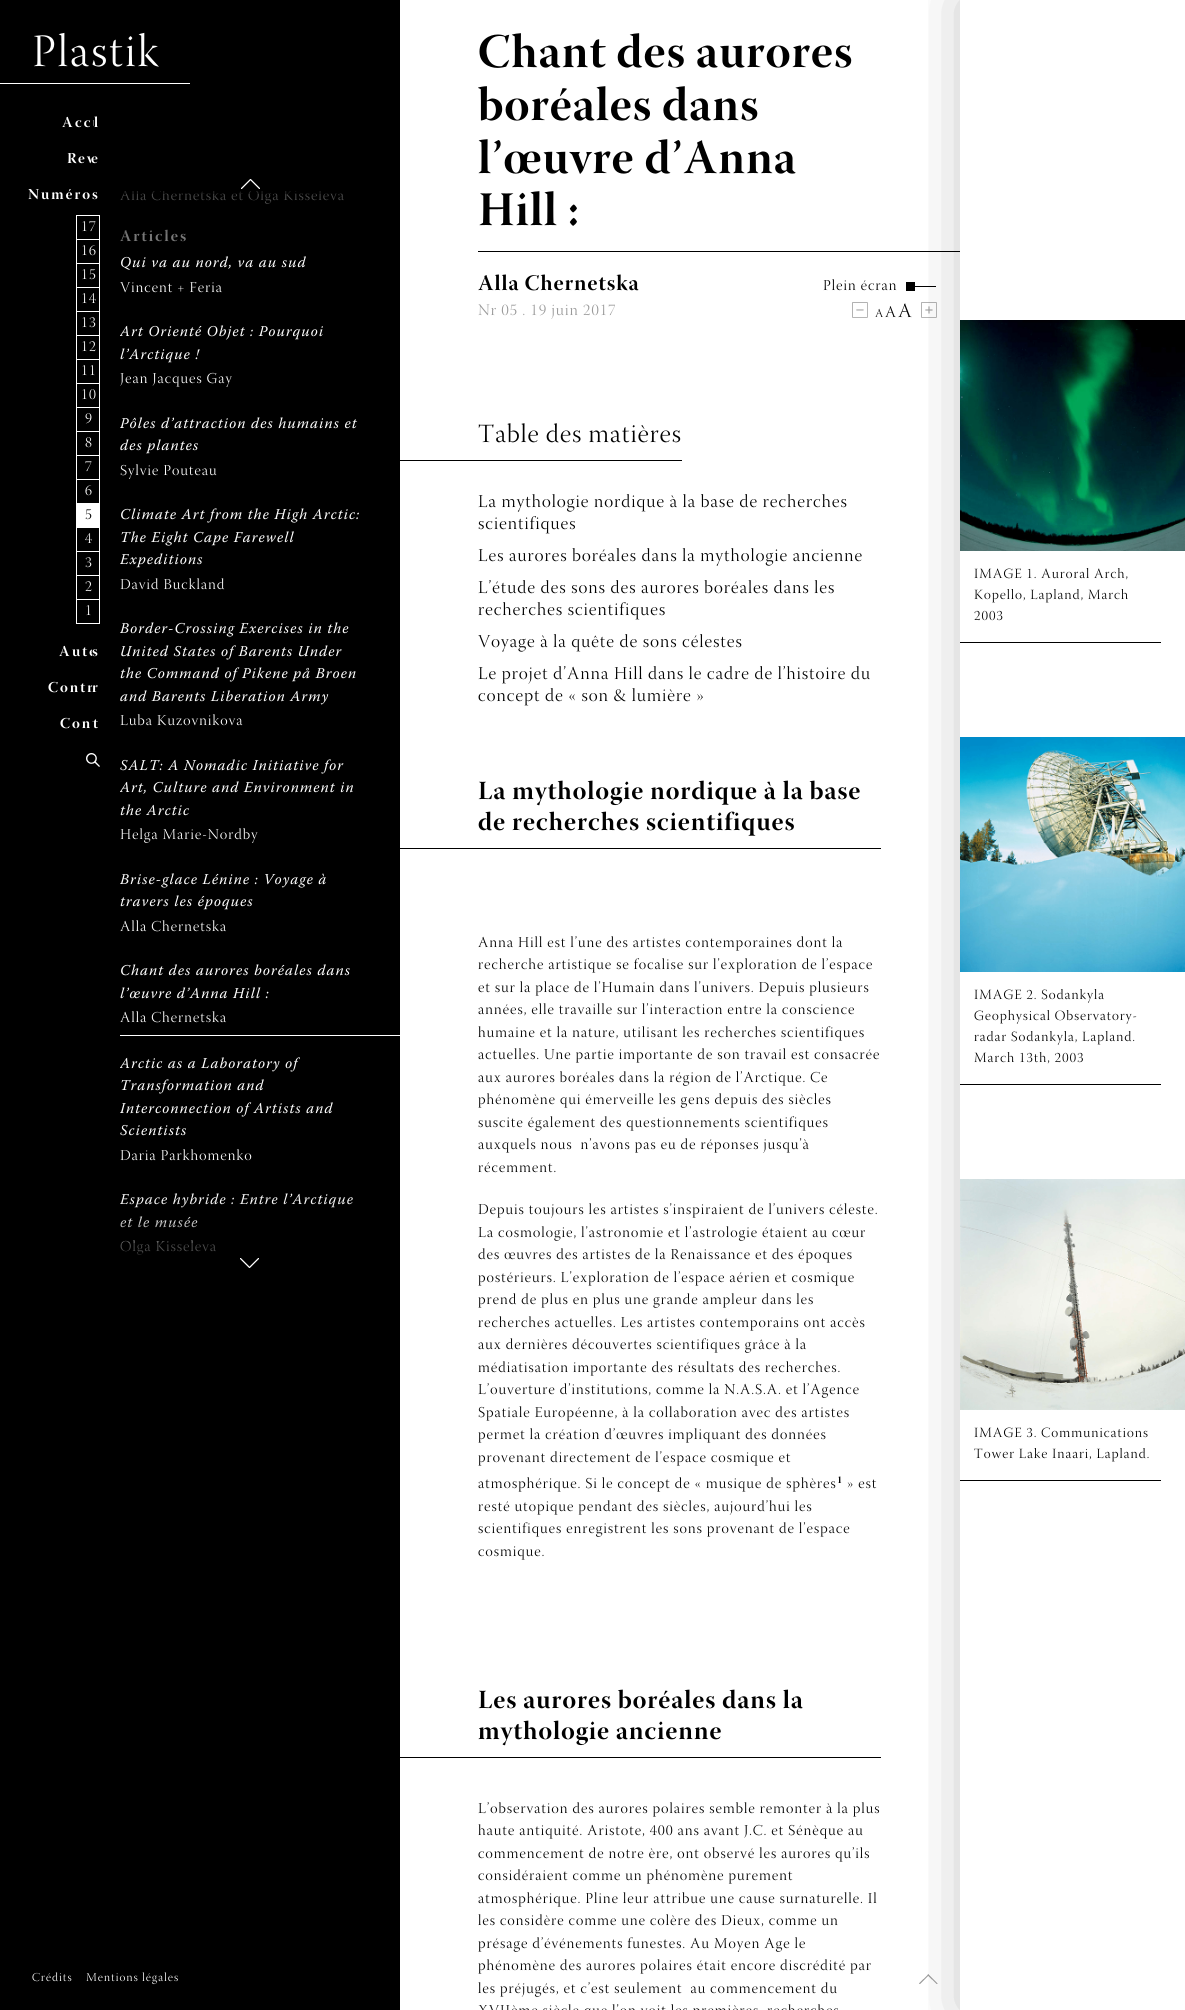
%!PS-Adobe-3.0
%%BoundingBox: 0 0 1185 2010
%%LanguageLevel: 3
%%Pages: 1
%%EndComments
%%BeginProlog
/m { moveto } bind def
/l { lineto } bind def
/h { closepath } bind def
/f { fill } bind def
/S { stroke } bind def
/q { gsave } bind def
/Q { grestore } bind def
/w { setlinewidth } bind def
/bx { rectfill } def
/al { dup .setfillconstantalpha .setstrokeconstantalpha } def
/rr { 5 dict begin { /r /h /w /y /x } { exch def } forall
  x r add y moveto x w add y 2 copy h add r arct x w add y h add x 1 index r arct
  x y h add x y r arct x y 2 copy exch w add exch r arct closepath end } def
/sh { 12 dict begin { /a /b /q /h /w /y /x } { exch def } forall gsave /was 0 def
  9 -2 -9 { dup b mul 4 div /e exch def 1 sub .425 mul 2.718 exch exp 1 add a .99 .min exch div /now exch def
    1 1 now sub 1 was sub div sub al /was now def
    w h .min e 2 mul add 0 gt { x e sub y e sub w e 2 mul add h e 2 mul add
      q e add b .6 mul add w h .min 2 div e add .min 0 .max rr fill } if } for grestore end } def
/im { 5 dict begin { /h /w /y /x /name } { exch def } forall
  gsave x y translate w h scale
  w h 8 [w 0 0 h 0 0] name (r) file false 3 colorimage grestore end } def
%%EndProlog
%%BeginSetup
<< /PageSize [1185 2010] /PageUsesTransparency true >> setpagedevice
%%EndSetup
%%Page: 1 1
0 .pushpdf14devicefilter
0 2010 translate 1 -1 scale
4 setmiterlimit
1 setgray
0 0 1185 2010 bx
0 setgray
0 0 400 2010 bx
(image0.raw) 34 32 125 35 im
1 setgray
0 83 190 1 bx
(image1.raw) 120 191 224 13 im
(image2.raw) 120 229 66 13 im
(image3.raw) 121 256 185 14 im
76 215 24 1 bx
99 216 1 288 bx
76 239 24 1 bx
76 216 1 24 bx
(image37.raw) 82 221 14 11 im
76 263 24 1 bx
76 240 1 24 bx
(image38.raw) 82 245 14 11 im
76 287 24 1 bx
76 264 1 24 bx
(image39.raw) 82 269 14 11 im
(image54.raw) 28 189 11 11 im
(image55.raw) 41 189 49 11 im
(image56.raw) 92 192 6 8 im
(image57.raw) 62 116 11 12 im
(image58.raw) 75 120 19 8 im
(image59.raw) 94 116 4 12 im
(image60.raw) 67 153 10 11 im
(image61.raw) 78 156 13 8 im
(image62.raw) 91 156 7 8 im
(image73.raw) 478 86 280 35 im
(image74.raw) 478 139 318 35 im
(image75.raw) 479 191 98 35 im
0 setgray
478 251 482 1 bx
q
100 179 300 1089 rectclip
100 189 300 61 rectclip
80 159 340 50 0 20 1 sh
Q
1 setgray
0.8 w
1 setlinecap
1 setlinejoin
259.5 188.5 m 250.5 179.5 l 241.5 188.5 m 250.5 179.5 l S
(image4.raw) 120 282 102 11 im
(image5.raw) 120 325 203 15 im
(image6.raw) 120 348 80 15 im
(image7.raw) 120 372 112 15 im
(image8.raw) 120 417 238 12 im
(image9.raw) 120 439 78 15 im
(image10.raw) 120 464 97 15 im
(image11.raw) 121 508 238 15 im
(image12.raw) 121 531 173 15 im
(image13.raw) 120 553 83 15 im
(image14.raw) 120 578 105 12 im
(image15.raw) 120 622 229 15 im
(image16.raw) 121 645 221 15 im
(image17.raw) 120 667 236 15 im
(image18.raw) 120 690 209 15 im
(image19.raw) 120 714 123 12 im
(image20.raw) 120 759 224 15 im
(image21.raw) 120 781 233 13 im
(image22.raw) 120 804 69 12 im
(image23.raw) 120 828 138 15 im
(image24.raw) 120 873 206 15 im
(image25.raw) 120 895 133 15 im
(image26.raw) 120 920 106 12 im
120 1035 280 1 bx
(image27.raw) 121 964 229 12 im
(image28.raw) 120 987 149 12 im
(image26.raw) 120 1011 106 12 im
(image29.raw) 120 1057 180 15 im
(image30.raw) 121 1079 143 15 im
(image31.raw) 120 1102 213 15 im
(image32.raw) 120 1124 66 12 im
(image33.raw) 120 1149 132 12 im
(image34.raw) 120 1193 233 15 im
(image35.raw) 120 1216 78 12 im
(image36.raw) 120 1240 96 15 im
(image106.raw) 478 1203 399 15 im
(image107.raw) 478 1226 387 15 im
(image108.raw) 478 1248 374 15 im
(image109.raw) 478 1271 376 15 im
(image110.raw) 478 1293 335 15 im
(image111.raw) 478 1316 387 15 im
(image112.raw) 478 1338 328 15 im
q
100 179 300 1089 rectclip
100 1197 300 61 rectclip
0 setgray
80 1238 340 50 0 20 1 sh
Q
240.5 1258.5 m 249.5 1267.5 l 258.5 1258.5 m 249.5 1267.5 l S
76 311 24 1 bx
76 288 1 24 bx
(image40.raw) 82 293 14 11 im
76 335 24 1 bx
76 312 1 24 bx
(image41.raw) 82 317 14 11 im
76 359 24 1 bx
76 336 1 24 bx
(image42.raw) 82 341 14 11 im
76 383 24 1 bx
76 360 1 24 bx
(image43.raw) 82 365 13 11 im
76 407 24 1 bx
76 384 1 24 bx
(image44.raw) 82 389 14 11 im
76 431 24 1 bx
76 408 1 24 bx
(image45.raw) 85 413 7 11 im
76 455 24 1 bx
76 432 1 24 bx
(image46.raw) 85 437 7 11 im
76 479 24 1 bx
76 456 1 24 bx
(image47.raw) 85 461 7 11 im
76 503 24 25 bx
76 480 1 24 bx
(image48.raw) 85 485 7 11 im
(image49.raw) 85 509 7 11 im
99 528 1 96 bx
76 551 24 1 bx
76 528 1 24 bx
(image50.raw) 85 533 7 11 im
76 575 24 1 bx
76 552 1 24 bx
(image51.raw) 85 557 7 11 im
76 599 24 1 bx
76 576 1 24 bx
(image52.raw) 85 581 7 11 im
76 623 24 1 bx
76 600 1 24 bx
(image53.raw) 86 605 5 11 im
(image57.raw) 59 645 11 12 im
(image63.raw) 72 647 20 10 im
(image56.raw) 92 649 6 8 im
(image64.raw) 48 681 10 12 im
(image65.raw) 60 683 32 10 im
(image66.raw) 92 685 6 7 im
(image64.raw) 60 717 10 12 im
(image67.raw) 72 721 21 8 im
(image68.raw) 93 719 5 10 im
(image69.raw) 86 753 14 14 im
(image70.raw) 32 1972 40 10 im
(image71.raw) 86 1972 92 13 im
(image72.raw) 479 33 373 35 im
(image76.raw) 478 274 161 17 im
(image77.raw) 823 279 74 12 im
0 setgray
906 282 9 9 bx
915 286 21 1 bx
(image78.raw) 852 302 16 16 im
(image79.raw) 875 308 8 9 im
(image80.raw) 885 306 11 12 im
(image81.raw) 898 303 14 15 im
(image82.raw) 921 302 16 16 im
(image83.raw) 478 304 137 15 im
(image84.raw) 478 423 203 20 im
400 460 282 1 bx
(image85.raw) 478 494 369 18 im
(image86.raw) 478 516 97 18 im
(image87.raw) 478 548 384 18 im
(image88.raw) 478 580 356 14 im
(image89.raw) 478 602 187 18 im
(image90.raw) 478 634 264 18 im
(image91.raw) 478 666 392 18 im
(image92.raw) 478 688 225 18 im
(image93.raw) 478 780 382 26 im
(image94.raw) 478 811 316 25 im
400 848 481 1 bx
(image95.raw) 478 936 365 15 im
(image96.raw) 478 958 394 15 im
(image97.raw) 478 981 391 15 im
(image98.raw) 478 1003 376 13 im
(image99.raw) 478 1026 386 15 im
(image100.raw) 478 1048 401 15 im
(image101.raw) 478 1071 349 15 im
(image102.raw) 478 1093 353 15 im
(image103.raw) 478 1116 350 15 im
(image104.raw) 478 1138 331 15 im
(image105.raw) 478 1162 78 11 im
(image113.raw) 478 1361 362 15 im
(image114.raw) 478 1383 381 15 im
(image115.raw) 478 1406 371 15 im
(image116.raw) 478 1428 348 15 im
(image117.raw) 478 1451 313 15 im
(image118.raw) 478 1477 358 15 im
(image119.raw) 838 1476 4 7 im
(image120.raw) 847 1479 30 10 im
(image121.raw) 478 1500 334 15 im
(image122.raw) 478 1522 372 15 im
(image123.raw) 478 1546 66 14 im
(image124.raw) 478 1689 325 20 im
(image125.raw) 478 1720 243 26 im
400 1757 481 1 bx
(image126.raw) 478 1802 402 15 im
(image127.raw) 478 1824 385 15 im
(image128.raw) 478 1847 391 15 im
(image129.raw) 478 1869 315 15 im
(image130.raw) 478 1892 399 15 im
(image131.raw) 478 1914 360 13 im
(image132.raw) 478 1937 327 15 im
(image133.raw) 478 1959 393 15 im
(image134.raw) 478 1982 359 15 im
(image135.raw) 478 2004 360 6 im
0.6 setgray
919 1983.5 m 928.5 1974.5 l 929 1975 l 920 1984 l h f
927.5 1975 m 928.5 1974.5 l 937.5 1983.5 l 937 1984 l h f
q
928 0 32 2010 rectclip
0 setgray
960 0 225 2010 0 25 0.2 sh
Q
(image136.raw) 960 320 225 231 im
0 setgray
960 642 201 1 bx
(image137.raw) 974 568 154 12 im
(image138.raw) 974 589 154 14 im
(image139.raw) 974 610 29 11 im
(image140.raw) 960 737 225 235 im
960 1084 201 1 bx
(image141.raw) 974 989 130 14 im
(image142.raw) 974 1010 163 14 im
(image143.raw) 974 1031 161 14 im
(image144.raw) 974 1052 109 12 im
(image145.raw) 960 1179 225 231 im
960 1480 201 1 bx
(image146.raw) 974 1427 174 11 im
(image147.raw) 974 1448 175 14 im
.poppdf14devicefilter showpage
%%EOF
